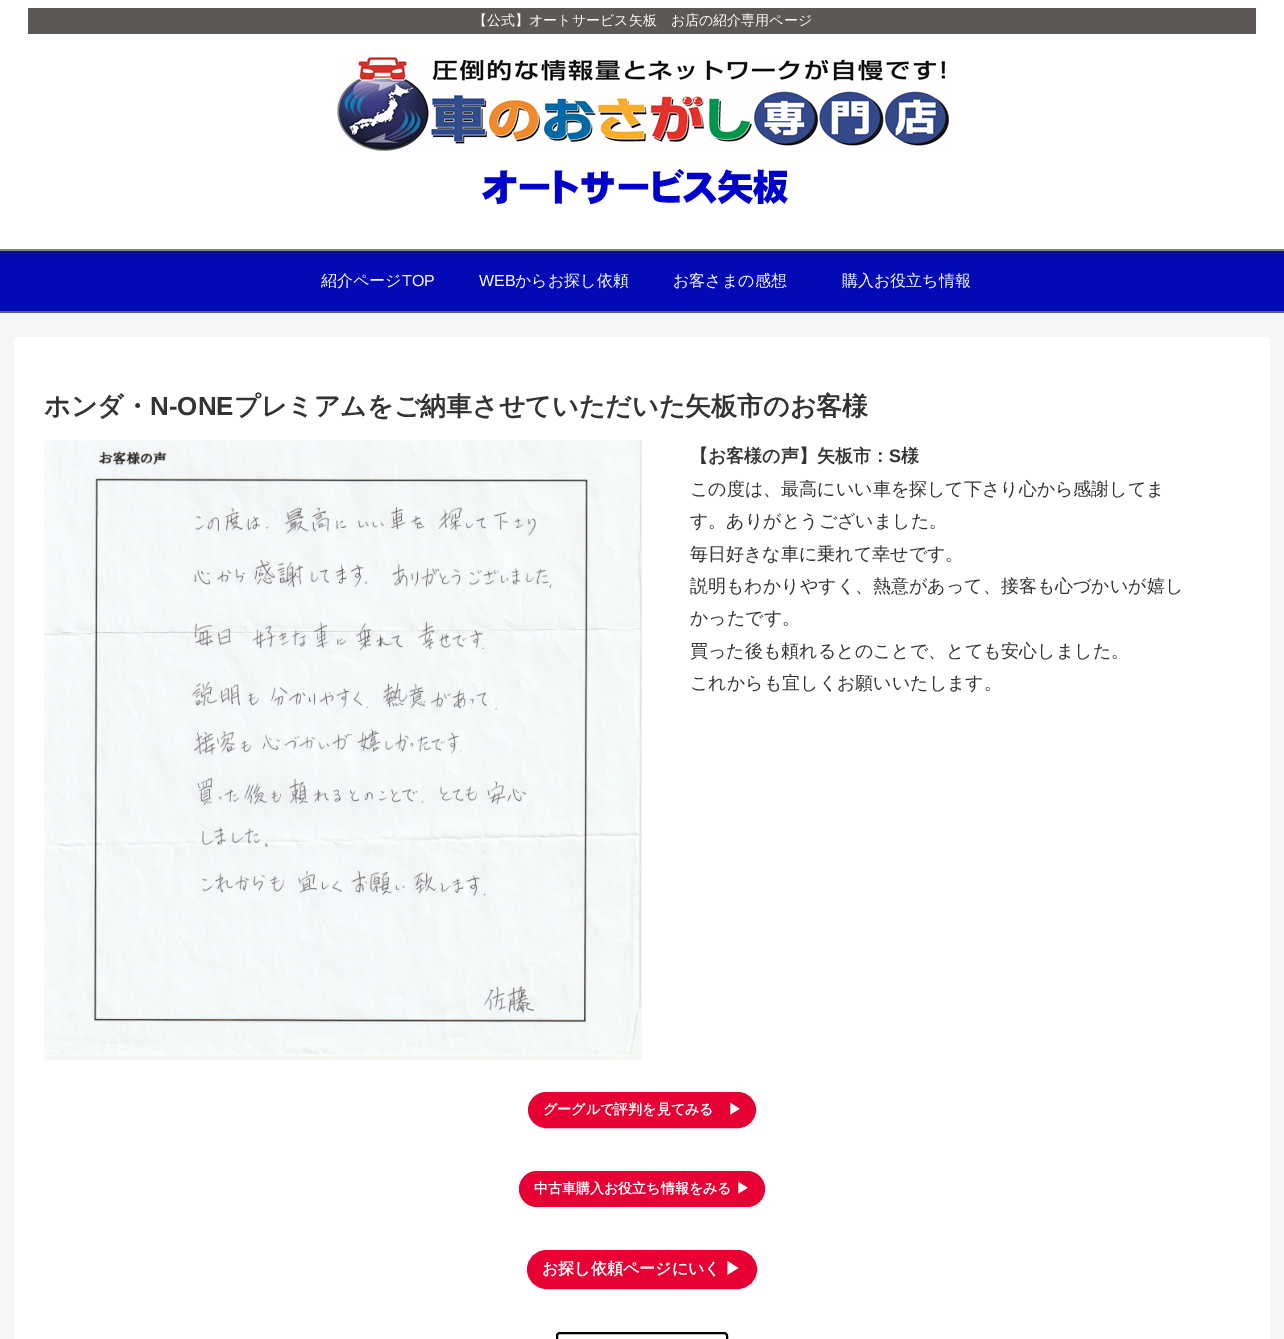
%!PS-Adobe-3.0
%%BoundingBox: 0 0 1284 1339
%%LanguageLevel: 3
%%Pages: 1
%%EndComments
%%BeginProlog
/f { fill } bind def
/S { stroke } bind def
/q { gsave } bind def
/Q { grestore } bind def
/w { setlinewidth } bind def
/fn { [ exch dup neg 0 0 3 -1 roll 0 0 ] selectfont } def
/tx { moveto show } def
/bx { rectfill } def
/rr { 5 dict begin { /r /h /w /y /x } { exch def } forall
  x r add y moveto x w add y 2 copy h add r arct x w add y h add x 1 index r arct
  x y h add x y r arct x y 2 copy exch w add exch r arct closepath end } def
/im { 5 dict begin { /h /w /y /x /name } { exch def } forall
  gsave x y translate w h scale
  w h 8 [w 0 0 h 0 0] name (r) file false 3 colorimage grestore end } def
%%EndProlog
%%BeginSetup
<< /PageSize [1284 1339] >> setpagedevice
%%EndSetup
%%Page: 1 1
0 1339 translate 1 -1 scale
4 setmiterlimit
0.957 0.961 0.969 setrgbcolor
0 0 1284 1339 bx
1 setgray
0 0 1284 249 bx
0.365 0.345 0.333 setrgbcolor
28 8 1228 26 bx
/WenQuanYiZenHei-Medium 14 fn
1 setgray
(【公式】オートサービス矢板　お店の紹介専用ページ) 473 25 tx
(image0.raw) 337 57 612 148 im
0.004 0.039 0.71 setrgbcolor
0 251 1284 60 bx
0.537 0.506 0.498 setrgbcolor
0 249 1284 2 bx
0.314 0.38 0.522 setrgbcolor
0 311 1284 2 bx
/WenQuanYiZenHei-Medium 16 fn
1 setgray
(紹介ページ) 321 286 tx
/LiberationSans-Regular 16 fn
(TOP) 402 286 tx
(WEB) 479 286 tx
/WenQuanYiZenHei-Medium 16 fn
(からお探し依頼) 515 286 tx
(お客さまの感想) 673 286 tx
(購入お役立ち情報) 842 286 tx
14 337 1256 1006 4 rr f
/WenQuanYiZenHei-Bold 26 fn
0.2 setgray
(ホンダ・) 44 415 tx
/LiberationSans-Bold 26 fn
(N-ONE) 150 415 tx
/WenQuanYiZenHei-Bold 26 fn
(プレミアムをご納車させていただいた矢板市のお客様) 234 415 tx
(image1.raw) 44 440 598 620 im
/WenQuanYiZenHei-Bold 18 fn
(【お客様の声】矢板市：) 690 462 tx
/LiberationSans-Bold 18 fn
(S) 889 462 tx
/WenQuanYiZenHei-Bold 18 fn
(様) 901 462 tx
/WenQuanYiZenHei-Medium 18 fn
(この度は、最高にいい車を探して下さり心から感謝してま) 690 495 tx
(す。ありがとうございました。) 690 527 tx
(毎日好きな車に乗れて幸せです。) 690 560 tx
(説明もわかりやすく、熱意があって、接客も心づかいが嬉し) 690 592 tx
(かったです。) 690 624 tx
(買った後も頼れるとのことで、とても安心しました。) 690 657 tx
(これからも宜しくお願いいたします。) 690 689 tx
0.902 0 0.2 setrgbcolor
529 1093 226 34 17 rr q f Q
2 w
S
/WenQuanYiZenHei-Bold 14 fn
1 setgray
(グーグルで評判を見てみる　▶) 543 1114 tx
0.902 0 0.2 setrgbcolor
519 1171 246 36 18 rr f
1 setgray
(中古車購入お役立ち情報をみる) 534 1193 tx
(▶) 736 1193 tx
0.902 0 0.2 setrgbcolor
528 1251 228 37 18.5 rr q f Q
S
/WenQuanYiZenHei-Bold 16 fn
1 setgray
(お探し依頼ページにいく ▶) 542 1274 tx
0 setgray
557 1333 170 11 3 rr S
showpage
%%EOF
